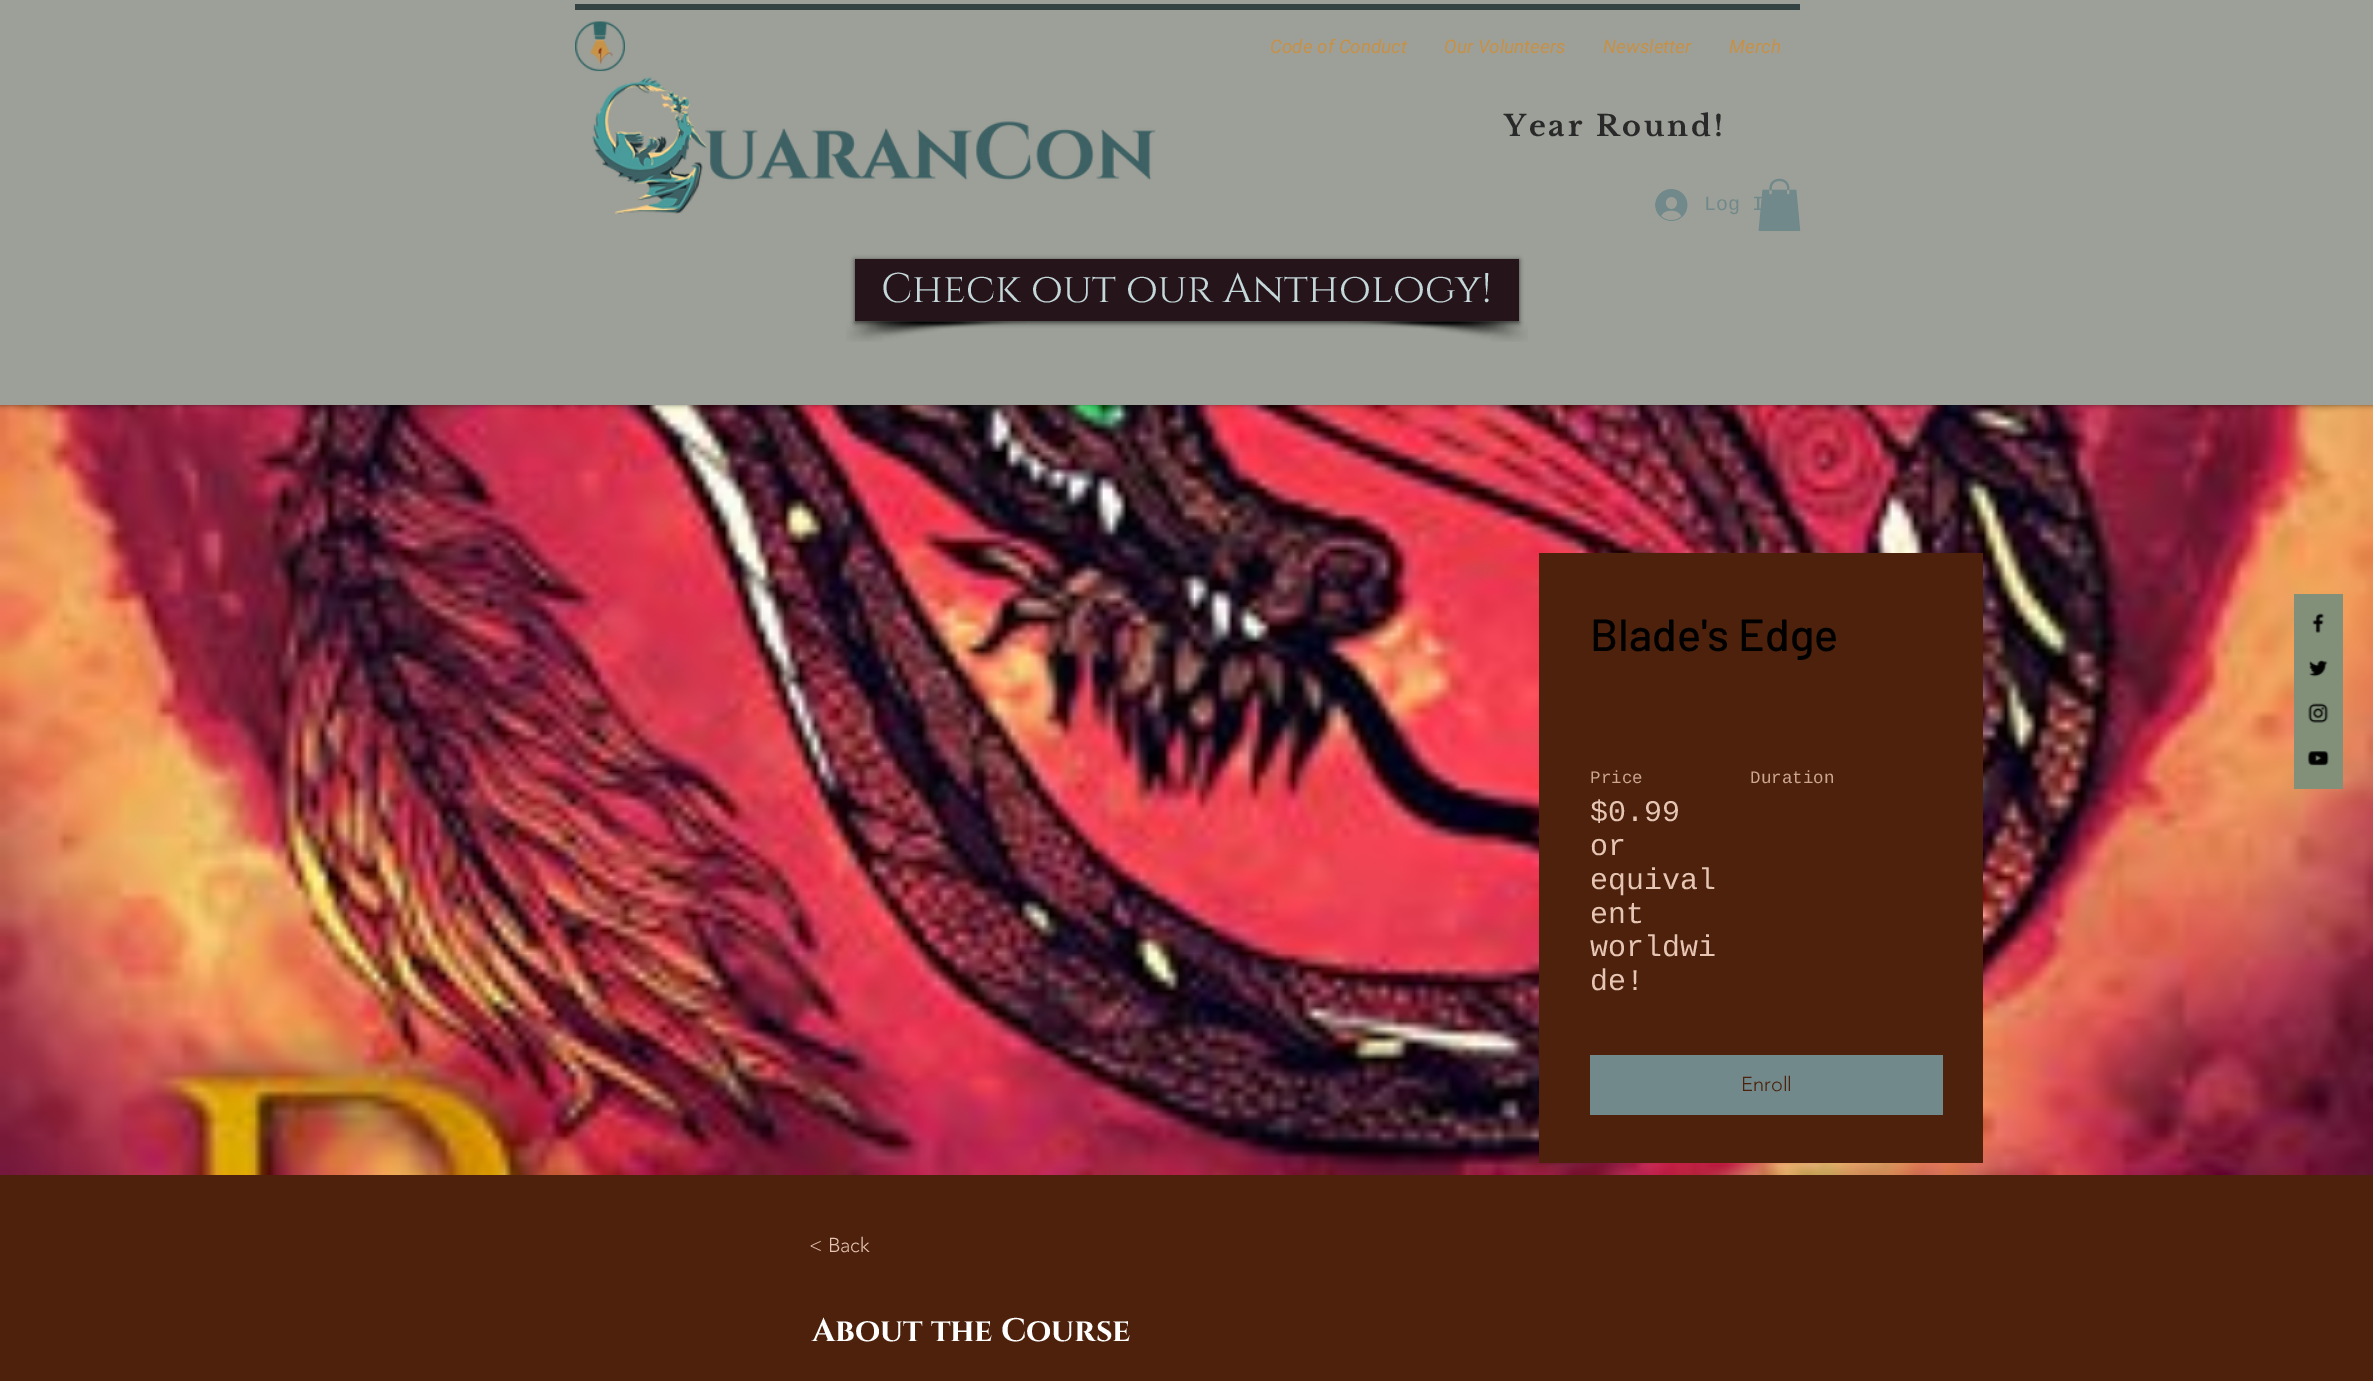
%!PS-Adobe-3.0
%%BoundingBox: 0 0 2373 1381
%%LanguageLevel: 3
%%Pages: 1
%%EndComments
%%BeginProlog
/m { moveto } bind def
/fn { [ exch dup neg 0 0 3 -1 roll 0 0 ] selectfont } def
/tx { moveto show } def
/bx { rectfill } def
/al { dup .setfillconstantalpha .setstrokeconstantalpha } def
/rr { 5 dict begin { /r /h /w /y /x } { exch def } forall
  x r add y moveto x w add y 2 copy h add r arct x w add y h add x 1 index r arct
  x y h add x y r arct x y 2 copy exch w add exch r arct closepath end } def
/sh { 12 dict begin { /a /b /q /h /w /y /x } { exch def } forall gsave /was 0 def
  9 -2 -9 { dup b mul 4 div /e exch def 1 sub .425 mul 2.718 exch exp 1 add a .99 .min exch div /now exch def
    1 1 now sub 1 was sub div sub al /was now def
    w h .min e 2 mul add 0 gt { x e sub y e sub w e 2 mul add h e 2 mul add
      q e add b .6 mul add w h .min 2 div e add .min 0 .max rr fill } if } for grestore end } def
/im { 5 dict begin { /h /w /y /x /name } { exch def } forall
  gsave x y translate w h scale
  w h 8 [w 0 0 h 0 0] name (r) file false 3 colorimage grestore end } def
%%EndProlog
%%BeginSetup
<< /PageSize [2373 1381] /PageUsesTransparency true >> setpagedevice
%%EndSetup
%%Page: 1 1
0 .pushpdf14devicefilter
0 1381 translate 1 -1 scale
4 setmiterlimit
0.302 0.129 0.043 setrgbcolor
0 0 2373 1381 bx
(image6.raw) 0 405 2373 770 im
0 setgray
0 0 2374 405 0 3 0.5 sh
0.616 0.627 0.596 setrgbcolor
0 0 2373 405 bx
0.2 0.263 0.263 setrgbcolor
575 4 1225 6 bx
(image0.raw) 575 21 50 51 im
/Roboto-Italic 18.75 fn
0.78 0.565 0.278 setrgbcolor
(Code of Conduct) 1270 53 tx
(Our Volunteers) 1444 53 tx
(Newsletter) 1603 53 tx
(Merch) 1729 53 tx
(image1.raw) 592 77 564 137 im
/LibreBaskerville-Bold 28.75 fn
0.161 setgray
1504 136 m 2.9 0 (Year Round!) ashow
(image2.raw) 1655 189 33 32 im
/LiberationMono-Regular 20 fn
0.443 0.537 0.545 setrgbcolor
(Log I) 1704 210 tx
(image3.raw) 1758 178 43 53 im
(image4.raw) 846 321 180 21 im
(image5.raw) 1348 321 180 21 im
0 setgray
855 260 664 63 0 2.5 0.6 sh
0.145 0.082 0.106 setrgbcolor
855 259 664 62 bx
/Cinzel-Regular 41.25 fn
0.769 0.843 0.851 setrgbcolor
(Check out our Anthology!) 881 302 tx
0.302 0.129 0.043 setrgbcolor
1539 553 444 610 bx
/Barlow-Medium 45 fn
0 setgray
(Blade's Edge) 1590 651 tx
/LiberationMono-Regular 17.5 fn
0.804 0.651 0.573 setrgbcolor
(Price) 1590 783 tx
(Duration) 1750 783 tx
/LiberationMono-Regular 30 fn
0.902 0.773 0.706 setrgbcolor
($0.99) 1590 821 tx
(or) 1590 855 tx
(equival) 1590 889 tx
(ent) 1590 923 tx
(worldwi) 1590 956 tx
(de!) 1590 990 tx
0.443 0.537 0.545 setrgbcolor
1590 1055 353 60 bx
/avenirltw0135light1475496-Light 20 fn
0.302 0.129 0.043 setrgbcolor
(Enroll) 1741 1091 tx
0.902 0.773 0.706 setrgbcolor
(< Back) 809 1252 tx
/Cinzel-Bold 32.5 fn
1 setgray
(About the Course) 812 1341 tx
0.51 0.565 0.478 setrgbcolor
2294 594 49 195 bx
(image7.raw) 2312 613 13 20 im
(image8.raw) 2309 660 19 17 im
(image9.raw) 2308 703 21 20 im
(image10.raw) 2307 751 22 15 im
.poppdf14devicefilter showpage
%%EOF
